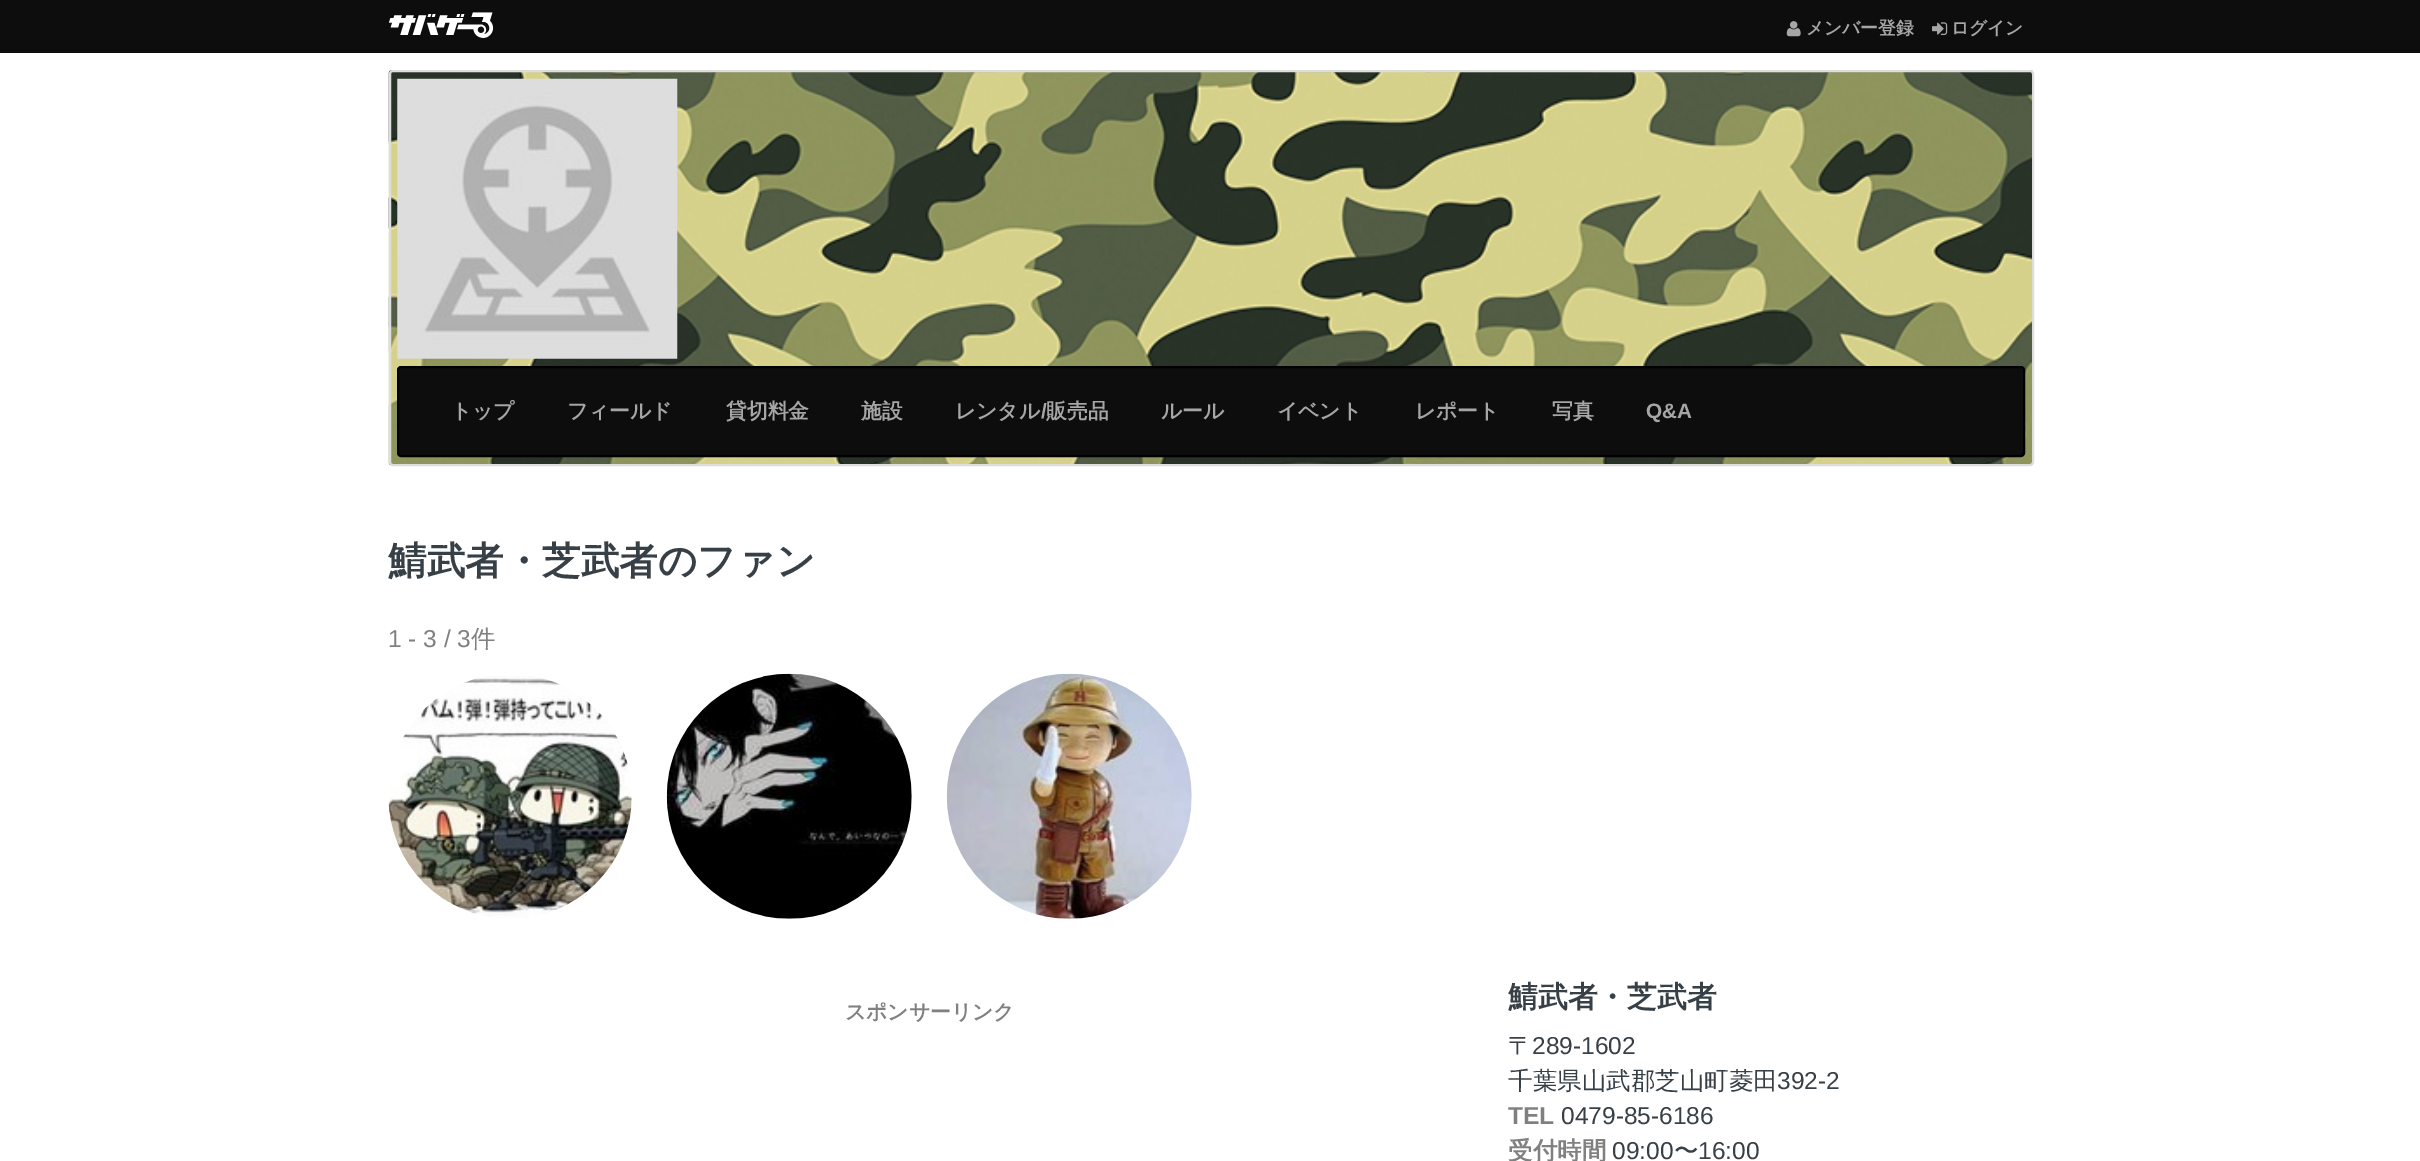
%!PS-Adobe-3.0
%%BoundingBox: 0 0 2420 1161
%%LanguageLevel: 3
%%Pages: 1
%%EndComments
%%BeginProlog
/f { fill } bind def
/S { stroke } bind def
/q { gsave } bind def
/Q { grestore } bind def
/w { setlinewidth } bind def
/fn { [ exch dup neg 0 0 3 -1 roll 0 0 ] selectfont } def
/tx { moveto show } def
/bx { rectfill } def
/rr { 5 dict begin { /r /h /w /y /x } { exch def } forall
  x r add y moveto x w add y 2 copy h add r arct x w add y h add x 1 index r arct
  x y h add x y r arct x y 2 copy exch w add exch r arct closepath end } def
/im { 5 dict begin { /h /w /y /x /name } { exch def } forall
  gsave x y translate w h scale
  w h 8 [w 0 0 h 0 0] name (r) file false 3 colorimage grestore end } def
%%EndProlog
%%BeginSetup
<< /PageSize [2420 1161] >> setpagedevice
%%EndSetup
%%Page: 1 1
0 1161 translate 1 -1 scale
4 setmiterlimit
1 setgray
0 0 2420 1161 bx
0.051 setgray
0 0 2420 53 bx
(image0.raw) 389 12 105 26 im
(image1.raw) 1786 21 15 16 im
/WenQuanYiZenHei-Bold 17.75 fn
0.651 setgray
(メンバー登録) 1806 34 tx
(image2.raw) 1932 22 16 13 im
(ログイン) 1951 34 tx
(image3.raw) 388 70 1646 396 im
0.867 setgray
2 w
390 71 1643 394 3 rr S
(image4.raw) 397 78 281 281 im
0.051 setgray
398 367 1626 89 3 rr q f Q
0 setgray
S
/WenQuanYiZenHei-Bold 20.75 fn
0.651 setgray
(トップ) 451 418 tx
(フィールド) 567 418 tx
(貸切料金) 726 418 tx
(施設) 861 418 tx
(レンタル) 955 418 tx
/LiberationSans-Bold 20.75 fn
(/) 1041 418 tx
/WenQuanYiZenHei-Bold 20.75 fn
(販売品) 1046 418 tx
(ルール) 1161 418 tx
(イベント) 1277 418 tx
(レポート) 1415 418 tx
(写真) 1552 418 tx
/LiberationSans-Bold 20.75 fn
(Q&A) 1646 418 tx
/WenQuanYiZenHei-Bold 38.5 fn
0.22 0.251 0.278 setrgbcolor
(鯖武者・芝武者のファン) 388 574 tx
/LiberationSans-Regular 24.5 fn
0.502 setgray
(1 - 3 / 3) 388 647 tx
/WenQuanYiZenHei-Medium 24.5 fn
(件) 471 647 tx
(image5.raw) 388 676 244 242 im
(image6.raw) 666 673 246 246 im
(image7.raw) 946 673 246 246 im
/WenQuanYiZenHei-Bold 20.75 fn
(スポンサーリンク) 845 1019 tx
/WenQuanYiZenHei-Bold 29.75 fn
0.22 0.251 0.278 setrgbcolor
(鯖武者・芝武者) 1508 1007 tx
/WenQuanYiZenHei-Medium 24.5 fn
(〒) 1508 1054 tx
/LiberationSans-Regular 24.5 fn
(289-1602) 1532 1054 tx
/WenQuanYiZenHei-Medium 24.5 fn
(千葉県山武郡芝山町菱田) 1508 1089 tx
/LiberationSans-Regular 24.5 fn
(392-2) 1777 1089 tx
/LiberationSans-Bold 24.5 fn
0.502 setgray
(TEL) 1508 1124 tx
/LiberationSans-Regular 24.5 fn
0.22 0.251 0.278 setrgbcolor
(0479-85-6186) 1561 1124 tx
/WenQuanYiZenHei-Bold 24.5 fn
0.502 setgray
(受付時間) 1508 1159 tx
/LiberationSans-Regular 24.5 fn
0.22 0.251 0.278 setrgbcolor
(09:00) 1612 1159 tx
/WenQuanYiZenHei-Medium 24.5 fn
(〜) 1674 1159 tx
/LiberationSans-Regular 24.5 fn
(16:00) 1698 1159 tx
showpage
%%EOF
